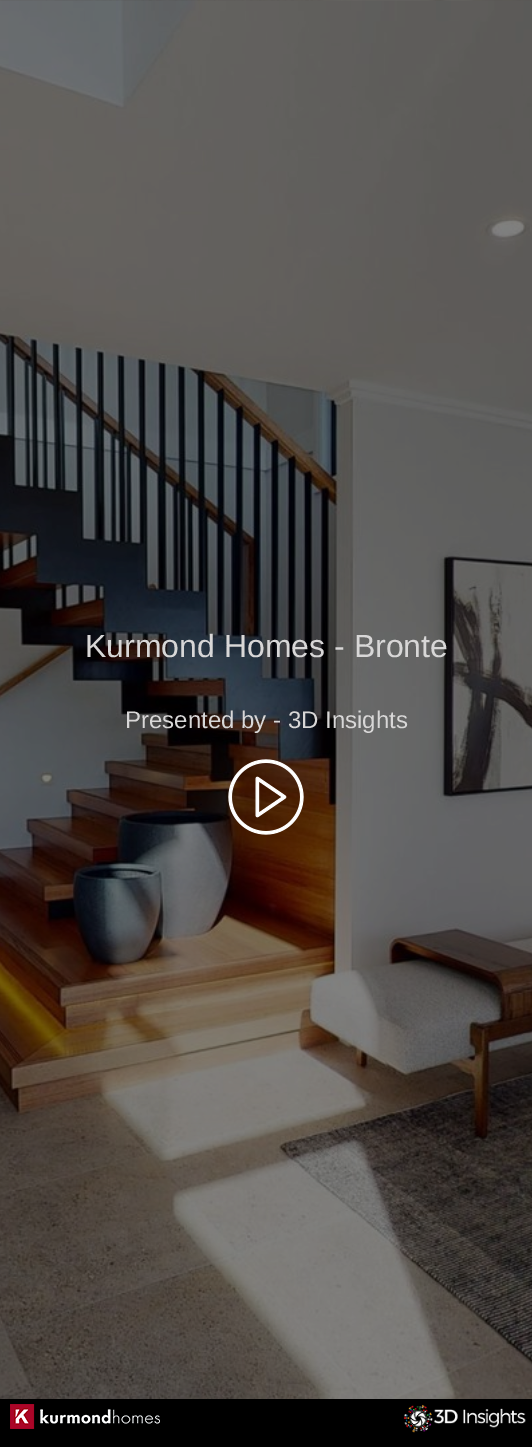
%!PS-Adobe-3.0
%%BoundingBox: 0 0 532 1447
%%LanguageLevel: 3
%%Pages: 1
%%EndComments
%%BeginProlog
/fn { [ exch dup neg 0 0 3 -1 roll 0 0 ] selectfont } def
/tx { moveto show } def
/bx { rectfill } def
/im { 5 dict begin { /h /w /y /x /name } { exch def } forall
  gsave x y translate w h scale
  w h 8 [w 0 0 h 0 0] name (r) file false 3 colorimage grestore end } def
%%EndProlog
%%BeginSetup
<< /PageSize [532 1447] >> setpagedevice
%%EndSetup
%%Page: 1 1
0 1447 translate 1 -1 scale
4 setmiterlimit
1 setgray
0 0 532 1447 bx
(image0.raw) 0 0 532 1399 im
/LiberationSans-Regular 32 fn
0.847 0.843 0.843 setrgbcolor
(Kurmond Homes - Bronte) 85 657 tx
/LiberationSans-Regular 24 fn
(Presented by - 3D Insights) 125 728 tx
(image1.raw) 228 759 76 76 im
0 setgray
0 1399 532 48 bx
(image2.raw) 10 1404 150 25 im
(image3.raw) 403 1404 123 29 im
showpage
%%EOF
